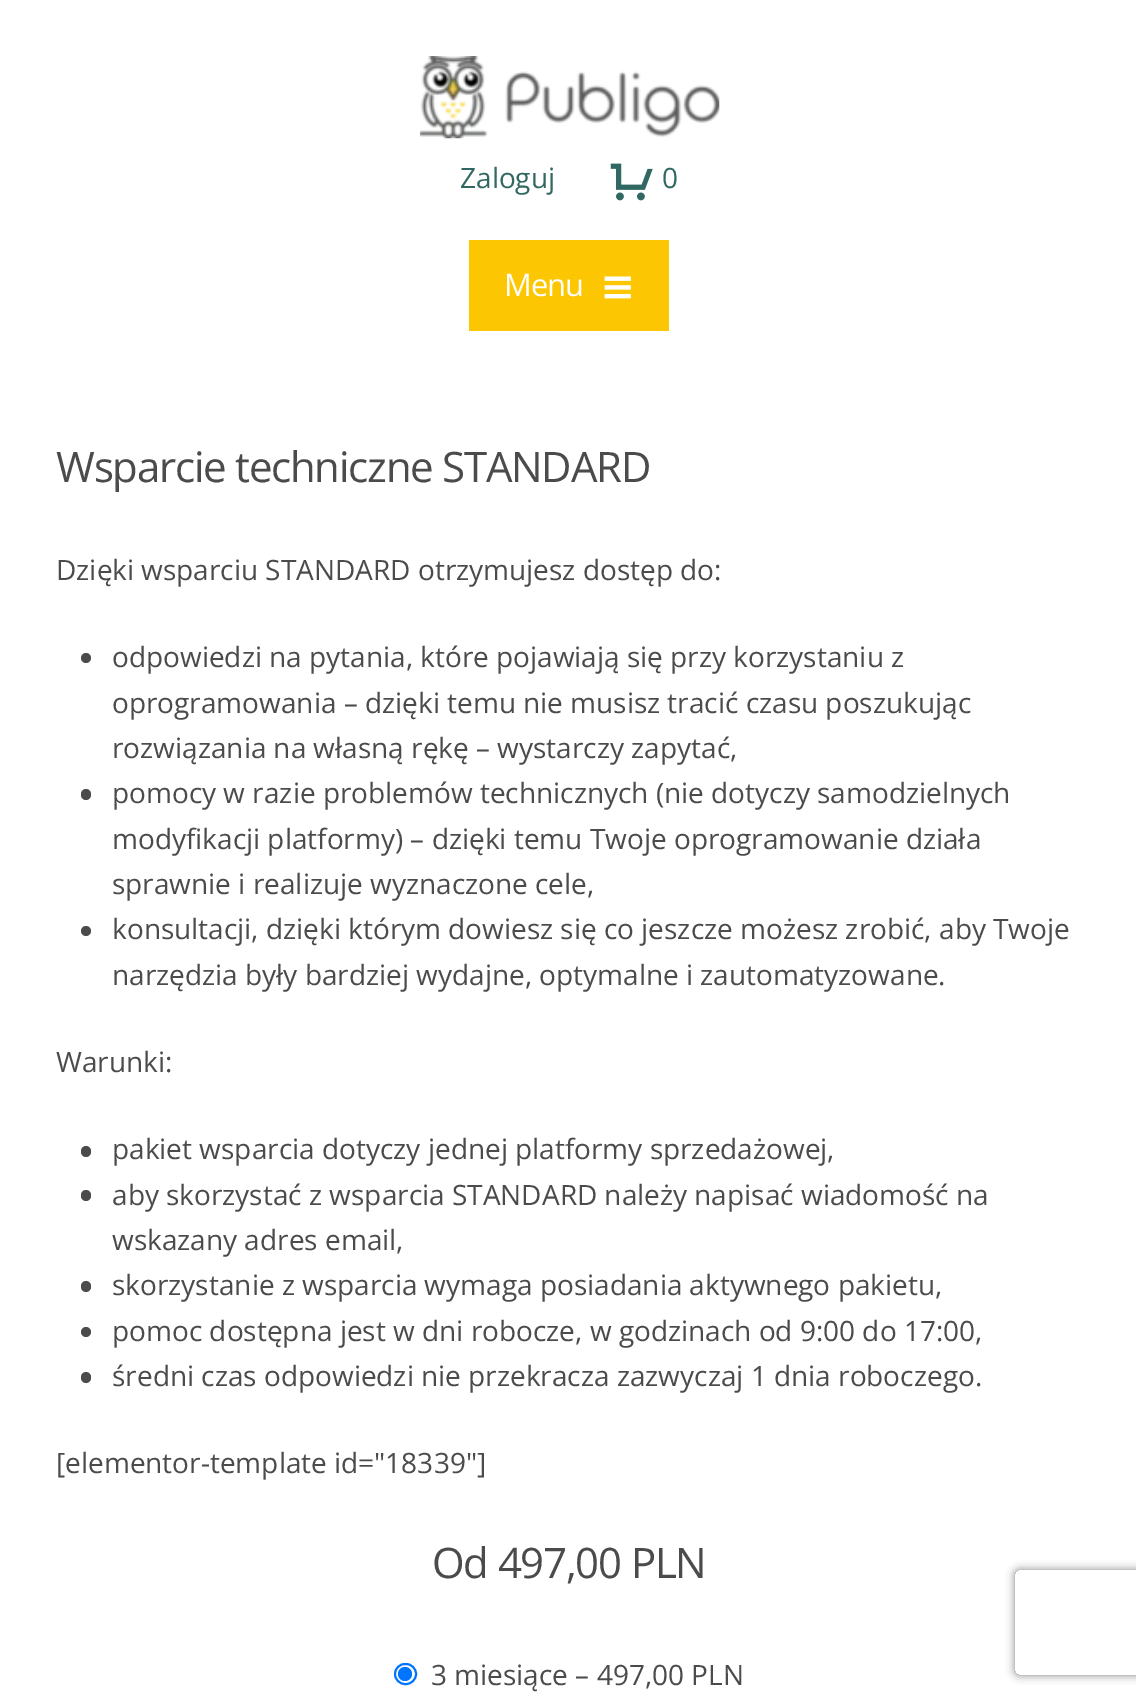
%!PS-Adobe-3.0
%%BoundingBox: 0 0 1136 1699
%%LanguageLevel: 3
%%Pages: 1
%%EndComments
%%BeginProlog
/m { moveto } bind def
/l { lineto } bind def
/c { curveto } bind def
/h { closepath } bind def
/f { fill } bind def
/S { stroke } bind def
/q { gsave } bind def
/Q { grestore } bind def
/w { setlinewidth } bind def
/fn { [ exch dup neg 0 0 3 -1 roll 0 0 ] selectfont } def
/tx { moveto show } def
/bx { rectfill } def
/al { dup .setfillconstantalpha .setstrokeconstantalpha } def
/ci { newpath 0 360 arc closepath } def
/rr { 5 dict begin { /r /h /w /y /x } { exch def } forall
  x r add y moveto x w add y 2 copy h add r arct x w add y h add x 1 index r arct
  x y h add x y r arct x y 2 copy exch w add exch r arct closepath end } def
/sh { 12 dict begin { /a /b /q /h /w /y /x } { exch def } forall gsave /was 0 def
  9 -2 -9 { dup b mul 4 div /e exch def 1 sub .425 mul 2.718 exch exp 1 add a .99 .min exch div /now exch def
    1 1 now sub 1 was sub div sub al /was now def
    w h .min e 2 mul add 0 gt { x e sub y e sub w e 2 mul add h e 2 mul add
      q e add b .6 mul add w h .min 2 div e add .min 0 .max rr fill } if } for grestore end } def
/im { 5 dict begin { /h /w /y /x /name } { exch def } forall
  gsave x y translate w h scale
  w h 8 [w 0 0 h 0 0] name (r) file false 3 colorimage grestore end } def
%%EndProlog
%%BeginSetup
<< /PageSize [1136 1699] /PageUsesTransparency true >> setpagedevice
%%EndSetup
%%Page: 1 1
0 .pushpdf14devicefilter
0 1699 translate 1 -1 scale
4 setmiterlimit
1 setgray
0 0 1136 1699 bx
(image0.raw) 420 56 300 83 im
/OpenSans-Regular 28 fn
0.192 0.408 0.38 setrgbcolor
(Zaloguj) 460 188 tx
(image1.raw) 610 163 43 38 im
(0) 662 188 tx
0.992 0.776 0.012 setrgbcolor
469 240 200 91 bx
/OpenSans-Regular 31 fn
1 setgray
504 296 m -1 0 (Menu) ashow
(image2.raw) 604 276 27 23 im
/OpenSans-Regular 42 fn
0.294 setgray
56 482 m -1.25 0 (Wsparcie techniczne STANDARD) ashow
/OpenSans-Regular 28 fn
(Dzięki wsparciu STANDARD otrzymujesz dostęp do:) 56 580 tx
86 658 5 ci f
(odpowiedzi na pytania, które pojawiają się przy korzystaniu z) 112 667 tx
(oprogramowania – dzięki temu nie musisz tracić czasu poszukując) 112 713 tx
(rozwiązania na własną rękę – wystarczy zapytać,) 112 758 tx
81 789 10 11 5 rr f
(pomocy w razie problemów technicznych \(nie dotyczy samodzielnych) 112 803 tx
(modyfikacji platformy\) – dzięki temu Twoje oprogramowanie działa) 112 849 tx
(sprawnie i realizuje wyznaczone cele,) 112 894 tx
86 931 5 ci f
(konsultacji, dzięki którym dowiesz się co jeszcze możesz zrobić, aby Twoje) 112 939 tx
(narzędzia były bardziej wydajne, optymalne i zautomatyzowane.) 112 985 tx
(Warunki:) 56 1072 tx
81 1146 10 11 5 rr f
(pakiet wsparcia dotyczy jednej platformy sprzedażowej,) 112 1159 tx
81 1190 10 11 5 rr f
(aby skorzystać z wsparcia STANDARD należy napisać wiadomość na) 112 1205 tx
(wskazany adres email,) 112 1250 tx
81 1281 10 11 5 rr f
(skorzystanie z wsparcia wymaga posiadania aktywnego pakietu,) 112 1295 tx
86 1332 5 ci f
(pomoc dostępna jest w dni robocze, w godzinach od 9:00 do 17:00,) 112 1341 tx
81 1372 10 11 5 rr f
(średni czas odpowiedzi nie przekracza zazwyczaj 1 dnia roboczego.) 112 1386 tx
([elementor-template id="18339"]) 56 1473 tx
/OpenSans-Regular 42 fn
432 1578 m -1.25 0 (Od 497,00 PLN) ashow
0 0.459 1 setrgbcolor
2 w
395 1664 21 20 10 rr S
405 1674 7 ci f
/OpenSans-Regular 28 fn
0.294 setgray
(3 miesiące – 497,00 PLN) 431 1685 tx
q
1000 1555 m 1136 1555 l 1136 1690 l 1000 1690 l h 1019 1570 m 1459 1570 l 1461 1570 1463 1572 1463 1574 c 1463 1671 l 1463 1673 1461 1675 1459 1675 c 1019 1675 l 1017 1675 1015 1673 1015 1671 c 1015 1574 l 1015 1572 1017 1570 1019 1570 c h eoclip newpath
0.502 setgray
1015 1570 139 105 4 4.5 1 sh
Q
.poppdf14devicefilter showpage
%%EOF
